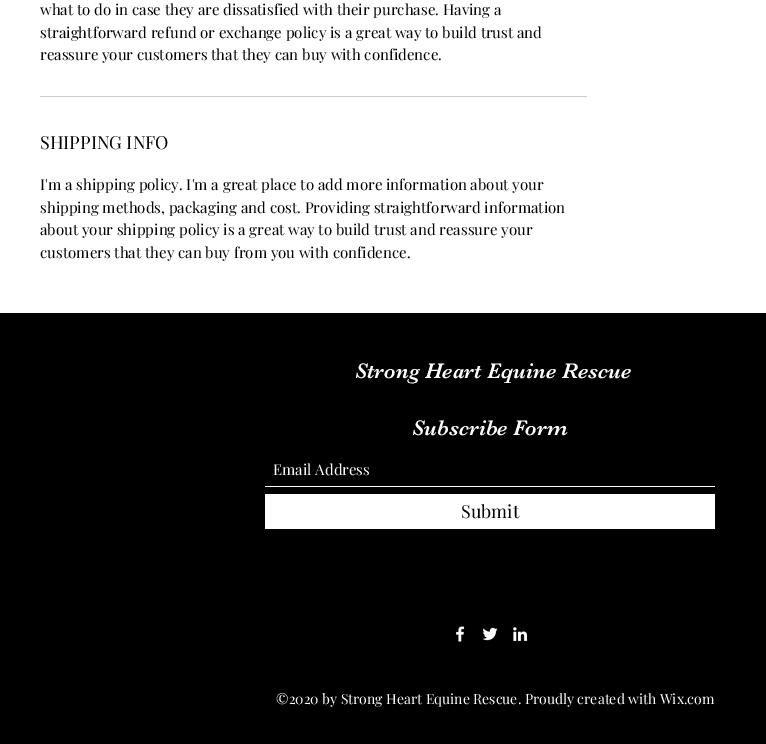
%!PS-Adobe-3.0
%%BoundingBox: 0 0 766 744
%%LanguageLevel: 3
%%Pages: 1
%%EndComments
%%BeginProlog
/fn { [ exch dup neg 0 0 3 -1 roll 0 0 ] selectfont } def
/tx { moveto show } def
/bx { rectfill } def
/im { 5 dict begin { /h /w /y /x /name } { exch def } forall
  gsave x y translate w h scale
  w h 8 [w 0 0 h 0 0] name (r) file false 3 colorimage grestore end } def
%%EndProlog
%%BeginSetup
<< /PageSize [766 744] >> setpagedevice
%%EndSetup
%%Page: 1 1
0 744 translate 1 -1 scale
4 setmiterlimit
1 setgray
0 0 766 744 bx
0.8 setgray
40 96 547 1 bx
/PlayfairDisplay-Regular 15 fn
0 setgray
(what to do in case they are dissatisfied with their purchase. Having a) 40 15 tx
(straightforward refund or exchange policy is a great way to build trust and) 40 38 tx
(reassure your customers that they can buy with confidence.) 40 60 tx
/PlayfairDisplay-Regular 18 fn
(SHIPPING INFO) 40 149 tx
/PlayfairDisplay-Regular 15 fn
(I'm a shipping policy. I'm a great place to add more information about your) 40 190 tx
(shipping methods, packaging and cost. Providing straightforward information) 40 213 tx
(about your shipping policy is a great way to build trust and reassure your) 40 235 tx
(customers that they can buy from you with confidence.) 40 258 tx
0 313 766 431 bx
/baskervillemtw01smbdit-Regular 22 fn
1 setgray
(Strong Heart Equine Rescue) 355 378 tx
(Subscribe Form) 412 435 tx
265 486 450 1 bx
/PlayfairDisplay-Regular 15 fn
(Email Address) 273 475 tx
265 494 450 35 bx
/PlayfairDisplay-Regular 18 fn
0 setgray
(Submit) 461 518 tx
(image0.raw) 456 626 9 16 im
(image1.raw) 482 627 16 14 im
(image2.raw) 513 627 15 15 im
/PlayfairDisplay-Regular 14 fn
1 setgray
(©2020 by Strong Heart Equine Rescue. Proudly created with Wix.com) 276 704 tx
showpage
%%EOF
